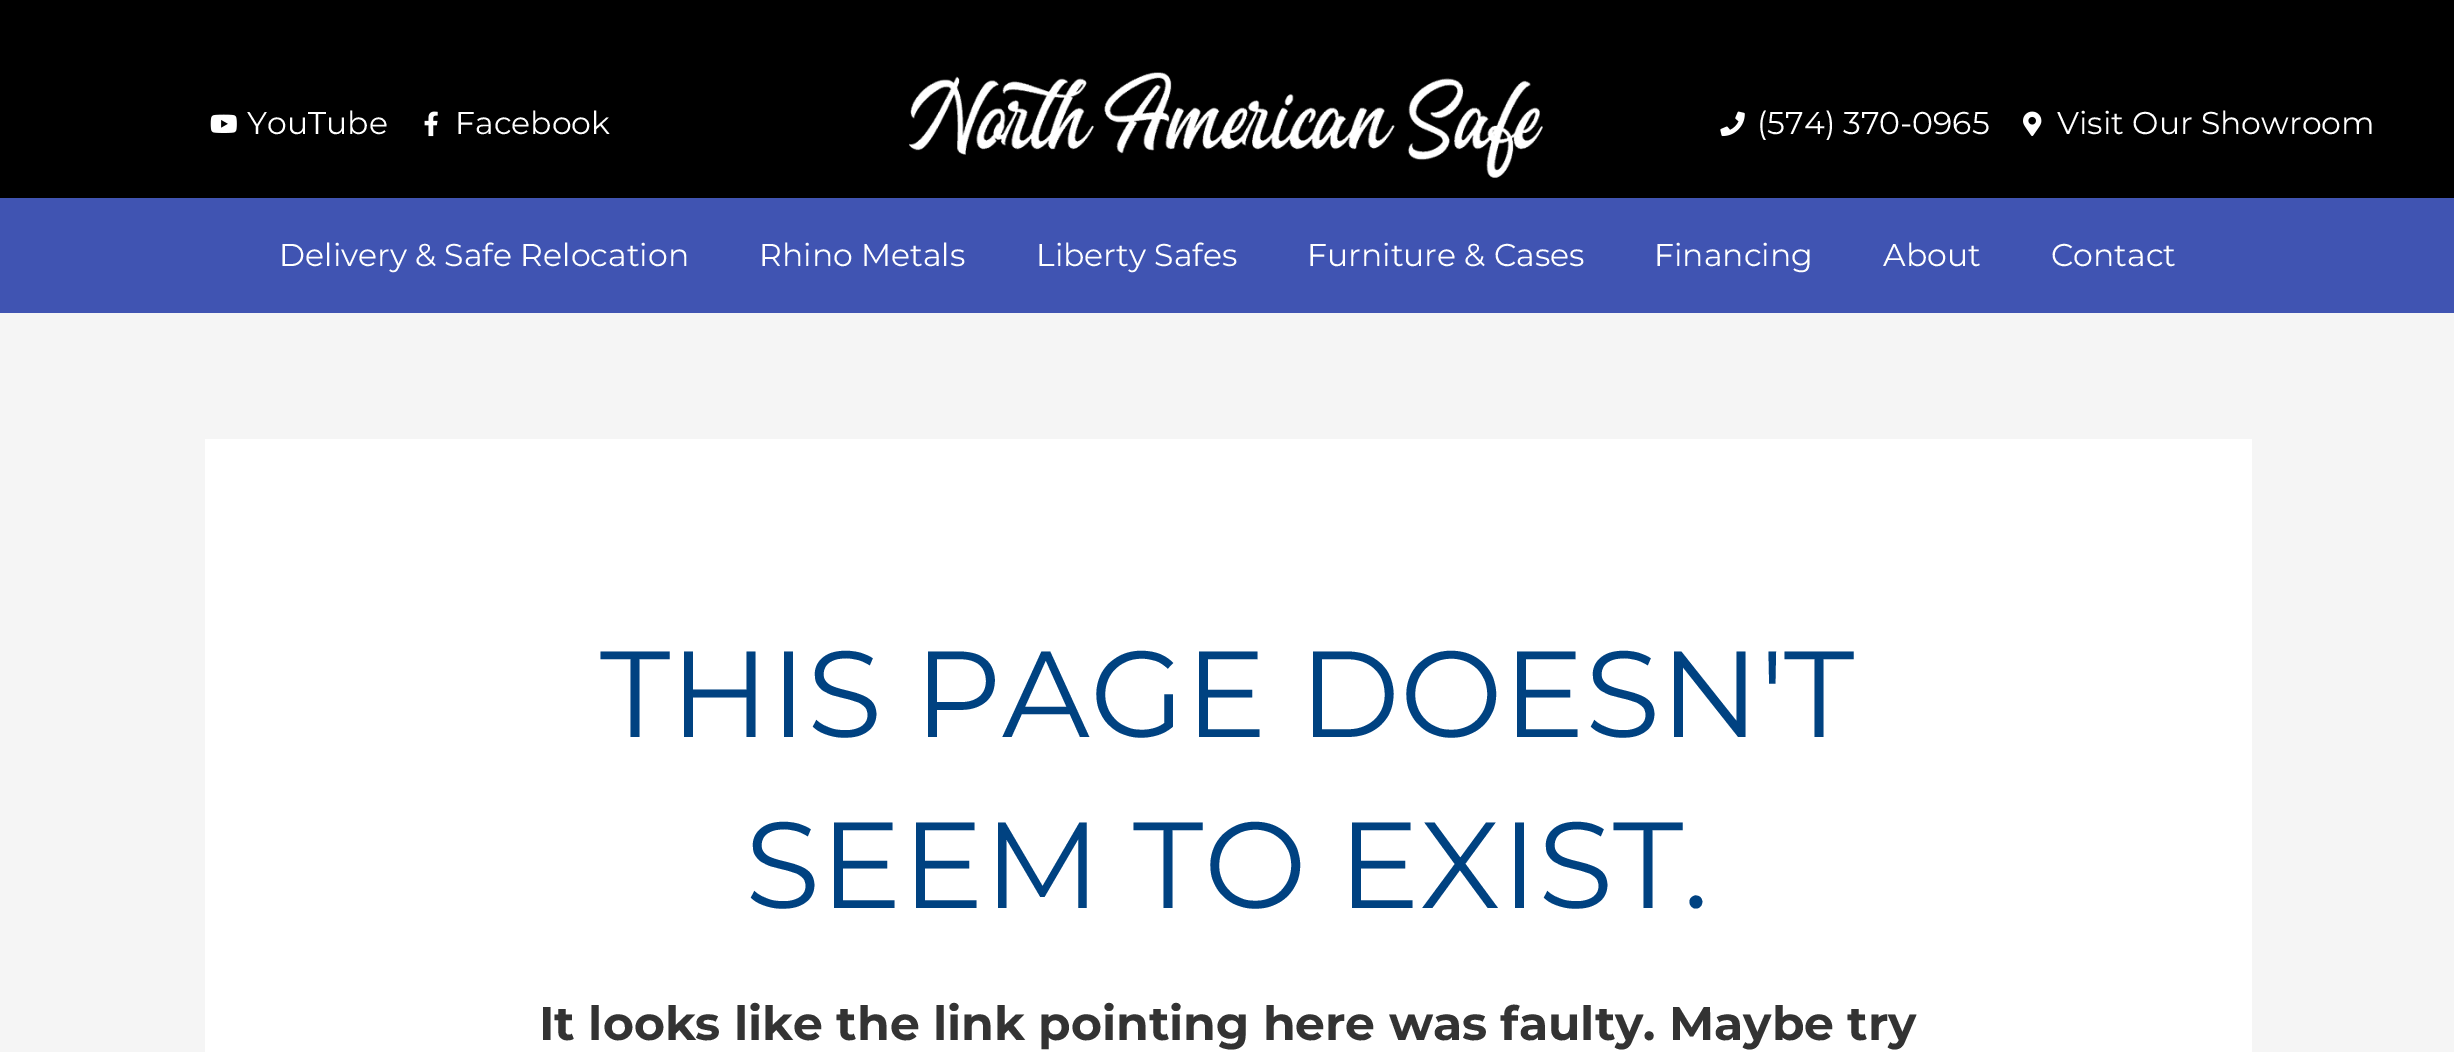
%!PS-Adobe-3.0
%%BoundingBox: 0 0 2454 1052
%%LanguageLevel: 3
%%Pages: 1
%%EndComments
%%BeginProlog
/fn { [ exch dup neg 0 0 3 -1 roll 0 0 ] selectfont } def
/tx { moveto show } def
/bx { rectfill } def
/im { 5 dict begin { /h /w /y /x /name } { exch def } forall
  gsave x y translate w h scale
  w h 8 [w 0 0 h 0 0] name (r) file false 3 colorimage grestore end } def
%%EndProlog
%%BeginSetup
<< /PageSize [2454 1052] >> setpagedevice
%%EndSetup
%%Page: 1 1
0 1052 translate 1 -1 scale
4 setmiterlimit
0.961 setgray
0 0 2454 1052 bx
0 setgray
0 0 2454 198 bx
(image0.raw) 210 114 27 19 im
/Montserrat-Regular 31.5 fn
1 setgray
(YouTube) 247 134 tx
(image1.raw) 424 111 14 26 im
(Facebook) 455 134 tx
(image2.raw) 909 72 634 106 im
(image3.raw) 1720 111 25 26 im
(\(574\) 370-0965) 1757 134 tx
(image4.raw) 2023 111 19 25 im
(Visit Our Showroom) 2057 134 tx
0.251 0.329 0.698 setrgbcolor
0 198 2454 115 bx
1 setgray
(Delivery & Safe Relocation) 279 266 tx
(Rhino Metals) 759 266 tx
(Liberty Safes) 1036 266 tx
(Furniture & Cases) 1307 266 tx
(Financing) 1654 266 tx
(About) 1883 266 tx
(Contact) 2051 266 tx
205 439 2047 613 bx
/Montserrat-Regular 122.5 fn
0 0.259 0.506 setrgbcolor
(THIS PAGE DOESN'T) 600 737 tx
(SEEM TO EXIST.) 745 908 tx
/Montserrat-Bold 47.25 fn
0.2 setgray
(It looks like the link pointing here was faulty. Maybe try) 539 1040 tx
showpage
%%EOF
